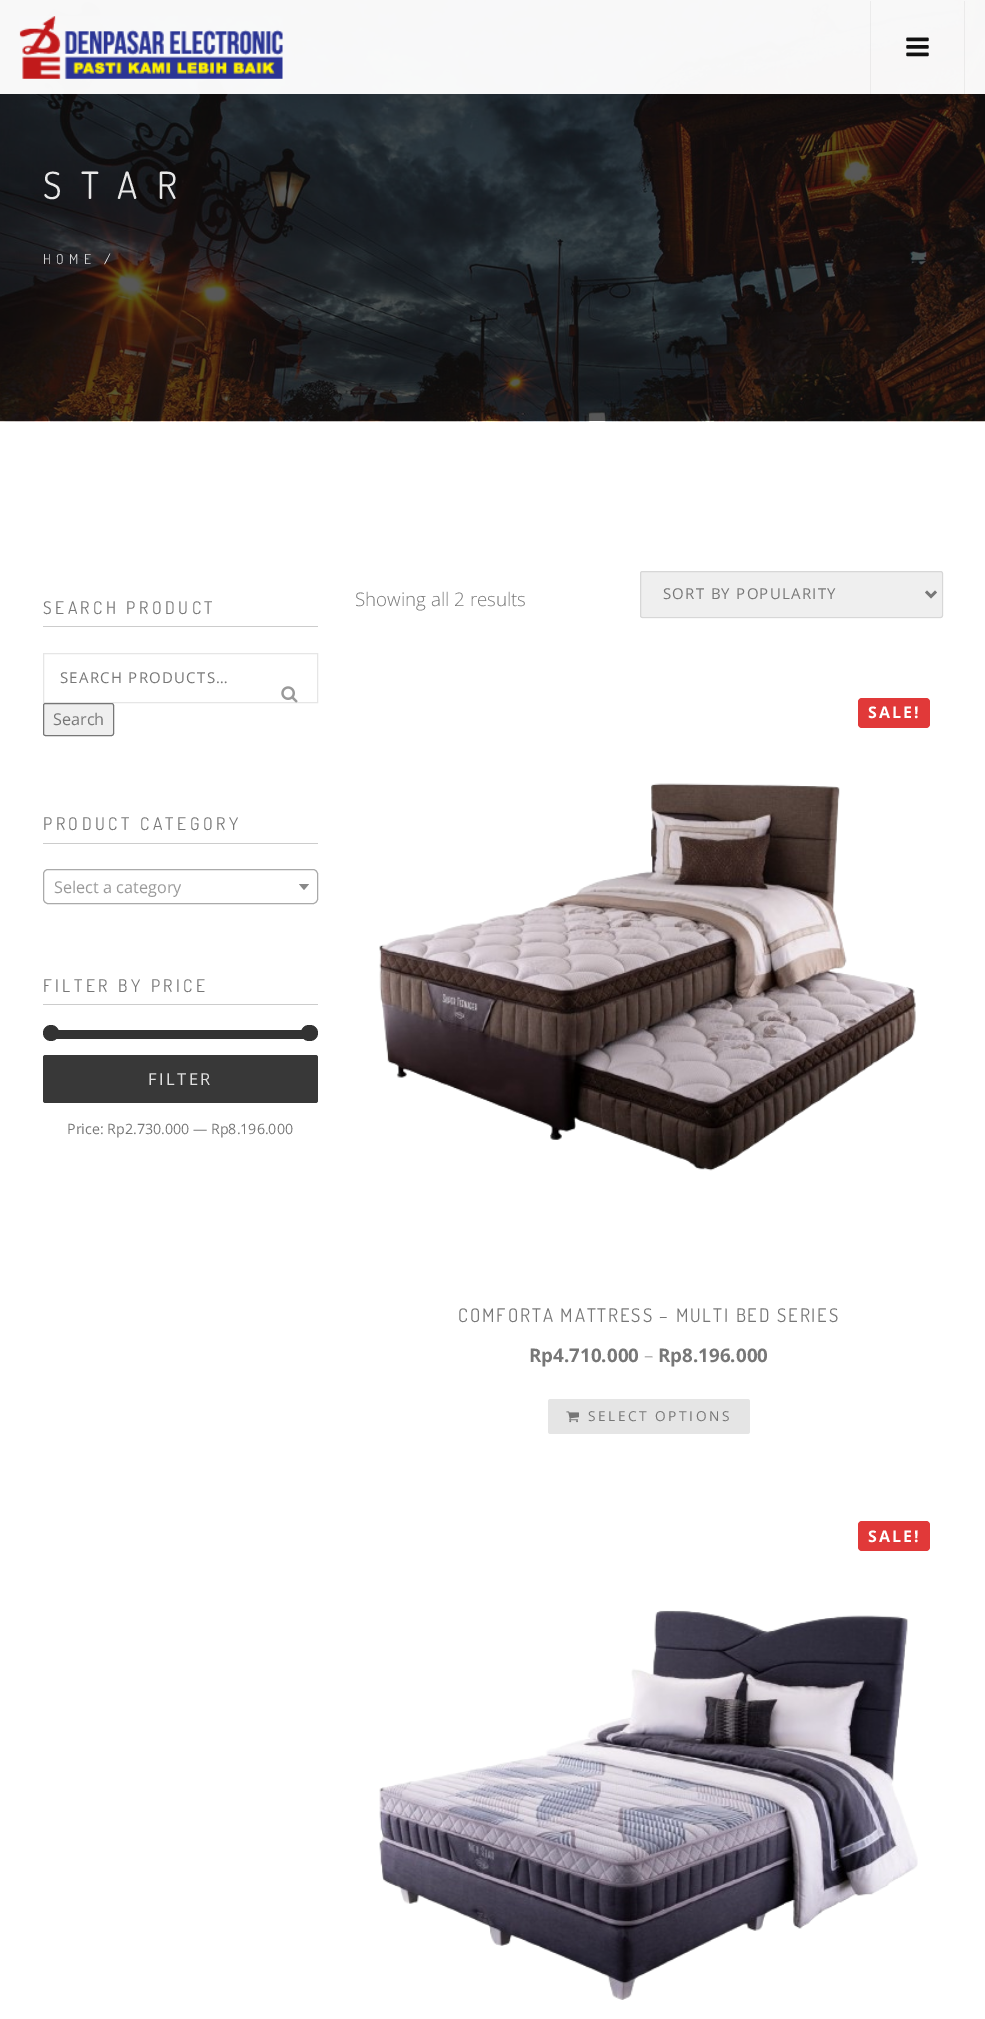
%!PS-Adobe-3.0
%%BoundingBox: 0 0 985 2019
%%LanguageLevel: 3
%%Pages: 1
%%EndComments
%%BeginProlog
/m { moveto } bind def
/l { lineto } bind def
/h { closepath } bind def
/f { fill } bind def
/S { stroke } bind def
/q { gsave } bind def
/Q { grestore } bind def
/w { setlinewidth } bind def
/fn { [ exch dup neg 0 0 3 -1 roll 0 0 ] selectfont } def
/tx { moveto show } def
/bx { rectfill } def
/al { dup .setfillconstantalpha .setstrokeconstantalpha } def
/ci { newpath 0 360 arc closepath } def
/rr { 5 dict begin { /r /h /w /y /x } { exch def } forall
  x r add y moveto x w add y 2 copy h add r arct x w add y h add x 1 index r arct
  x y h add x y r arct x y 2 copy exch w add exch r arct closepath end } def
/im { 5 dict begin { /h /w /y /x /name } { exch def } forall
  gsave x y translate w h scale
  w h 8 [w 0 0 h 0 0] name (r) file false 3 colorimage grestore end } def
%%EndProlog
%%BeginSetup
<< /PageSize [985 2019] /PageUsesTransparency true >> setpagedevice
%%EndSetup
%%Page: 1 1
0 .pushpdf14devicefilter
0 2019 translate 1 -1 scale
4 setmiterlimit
1 setgray
0 0 985 2019 bx
(image2.raw) 0 0 985 422 im
0.97 al
0 0 985 94 bx
1 al
(image0.raw) 19 16 264 63 im
0.05 al
0 setgray
964 1 1 94 bx
870 1 1 94 bx
1 al
(image1.raw) 906 37 23 20 im
/Dosis-Regular 37.5 fn
0.91 setgray
43 199 m 19 0 (STAR) ashow
/Dosis-Regular 13.75 fn
0.827 0.827 0.831 setrgbcolor
43 264 m 5.5 0 (HOME) ashow
1 setgray
104 264 m 5.5 0 (/) ashow
0.8 setgray
43 626 275 1 bx
/Dosis-Regular 17.5 fn
0.467 setgray
43 614 m 3.5 0 (SEARCH PRODUCT) ashow
0.902 setgray
43.5 653.5 274 49 rectstroke
/OpenSans-Regular 15 fn
0.467 setgray
60 683 m 1.25 0 (SEARCH PRODUCTS…) ashow
(image3.raw) 281 686 17 17 im
0.937 setgray
43.5 703.5 70 32 2 rr q f Q
0.463 setgray
S
/OpenSans-Regular 16.25 fn
0.467 setgray
(Search) 53 725 tx
0.8 setgray
43 843 275 1 bx
/Dosis-Regular 17.5 fn
0.467 setgray
43 830 m 3.5 0 (PRODUCT CATEGORY) ashow
0.667 setgray
43.5 869.5 274 34 4.5 rr S
/OpenSans-Regular 16.25 fn
0.6 setgray
(Select a category) 54 893 tx
0.533 setgray
299 884 m 309 884 l 304 890 l h f
0.8 setgray
43 1004 275 1 bx
/Dosis-Regular 17.5 fn
0.467 setgray
43 992 m 3.5 0 (FILTER BY PRICE) ashow
0.2 setgray
56 1030 248 9 bx
51 1033 8 ci f
301 1025 17 16 8 rr f
0.22 setgray
43 1055 275 48 2.5 rr f
/OpenSans-Regular 16.5 fn
0.882 setgray
148 1085 m 2.5 0 (FILTER) ashow
/OpenSans-Regular 14.25 fn
0.467 setgray
(Price: Rp2.730.000 — Rp8.196.000) 67 1134 tx
/OpenSans-Light 18.75 fn
(Showing all 2 results) 355 606 tx
0.937 setgray
640 571 303 47 2.5 rr f
0.1 al
0 setgray
640.5 571.5 302 46 2 rr S
1 al
0.467 setgray
2.5 w
926 591.5 m 931 596.5 l 936 591.5 l S
/OpenSans-Regular 15 fn
663 599 m 1.25 0 (SORT BY POPULARITY) ashow
0.882 0.224 0.224 setrgbcolor
858 698 72 30 4 rr f
/OpenSans-Bold 16 fn
1 setgray
868 718 m 2 0 (SALE!) ashow
(image4.raw) 379 783 537 388 im
/Dosis-Regular 18.75 fn
0.467 setgray
458 1322 m 1.9 0 (COMFORTA MATTRESS – MULTI BED SERIES) ashow
/OpenSans-Bold 18.75 fn
(Rp4.710.000) 529 1362 tx
/OpenSans-Light 18.75 fn
(–) 644 1362 tx
/OpenSans-Bold 18.75 fn
(Rp8.196.000) 658 1362 tx
0.898 setgray
548 1399 202 35 2.5 rr f
(image5.raw) 566 1411 13 12 im
/OpenSans-Regular 13.75 fn
0.467 setgray
588 1421 m 2.5 0 (SELECT OPTIONS) ashow
0.882 0.224 0.224 setrgbcolor
858 1521 72 30 4 rr f
/OpenSans-Bold 16 fn
1 setgray
868 1542 m 2 0 (SALE!) ashow
(image6.raw) 379 1610 539 390 im
.poppdf14devicefilter showpage
%%EOF
